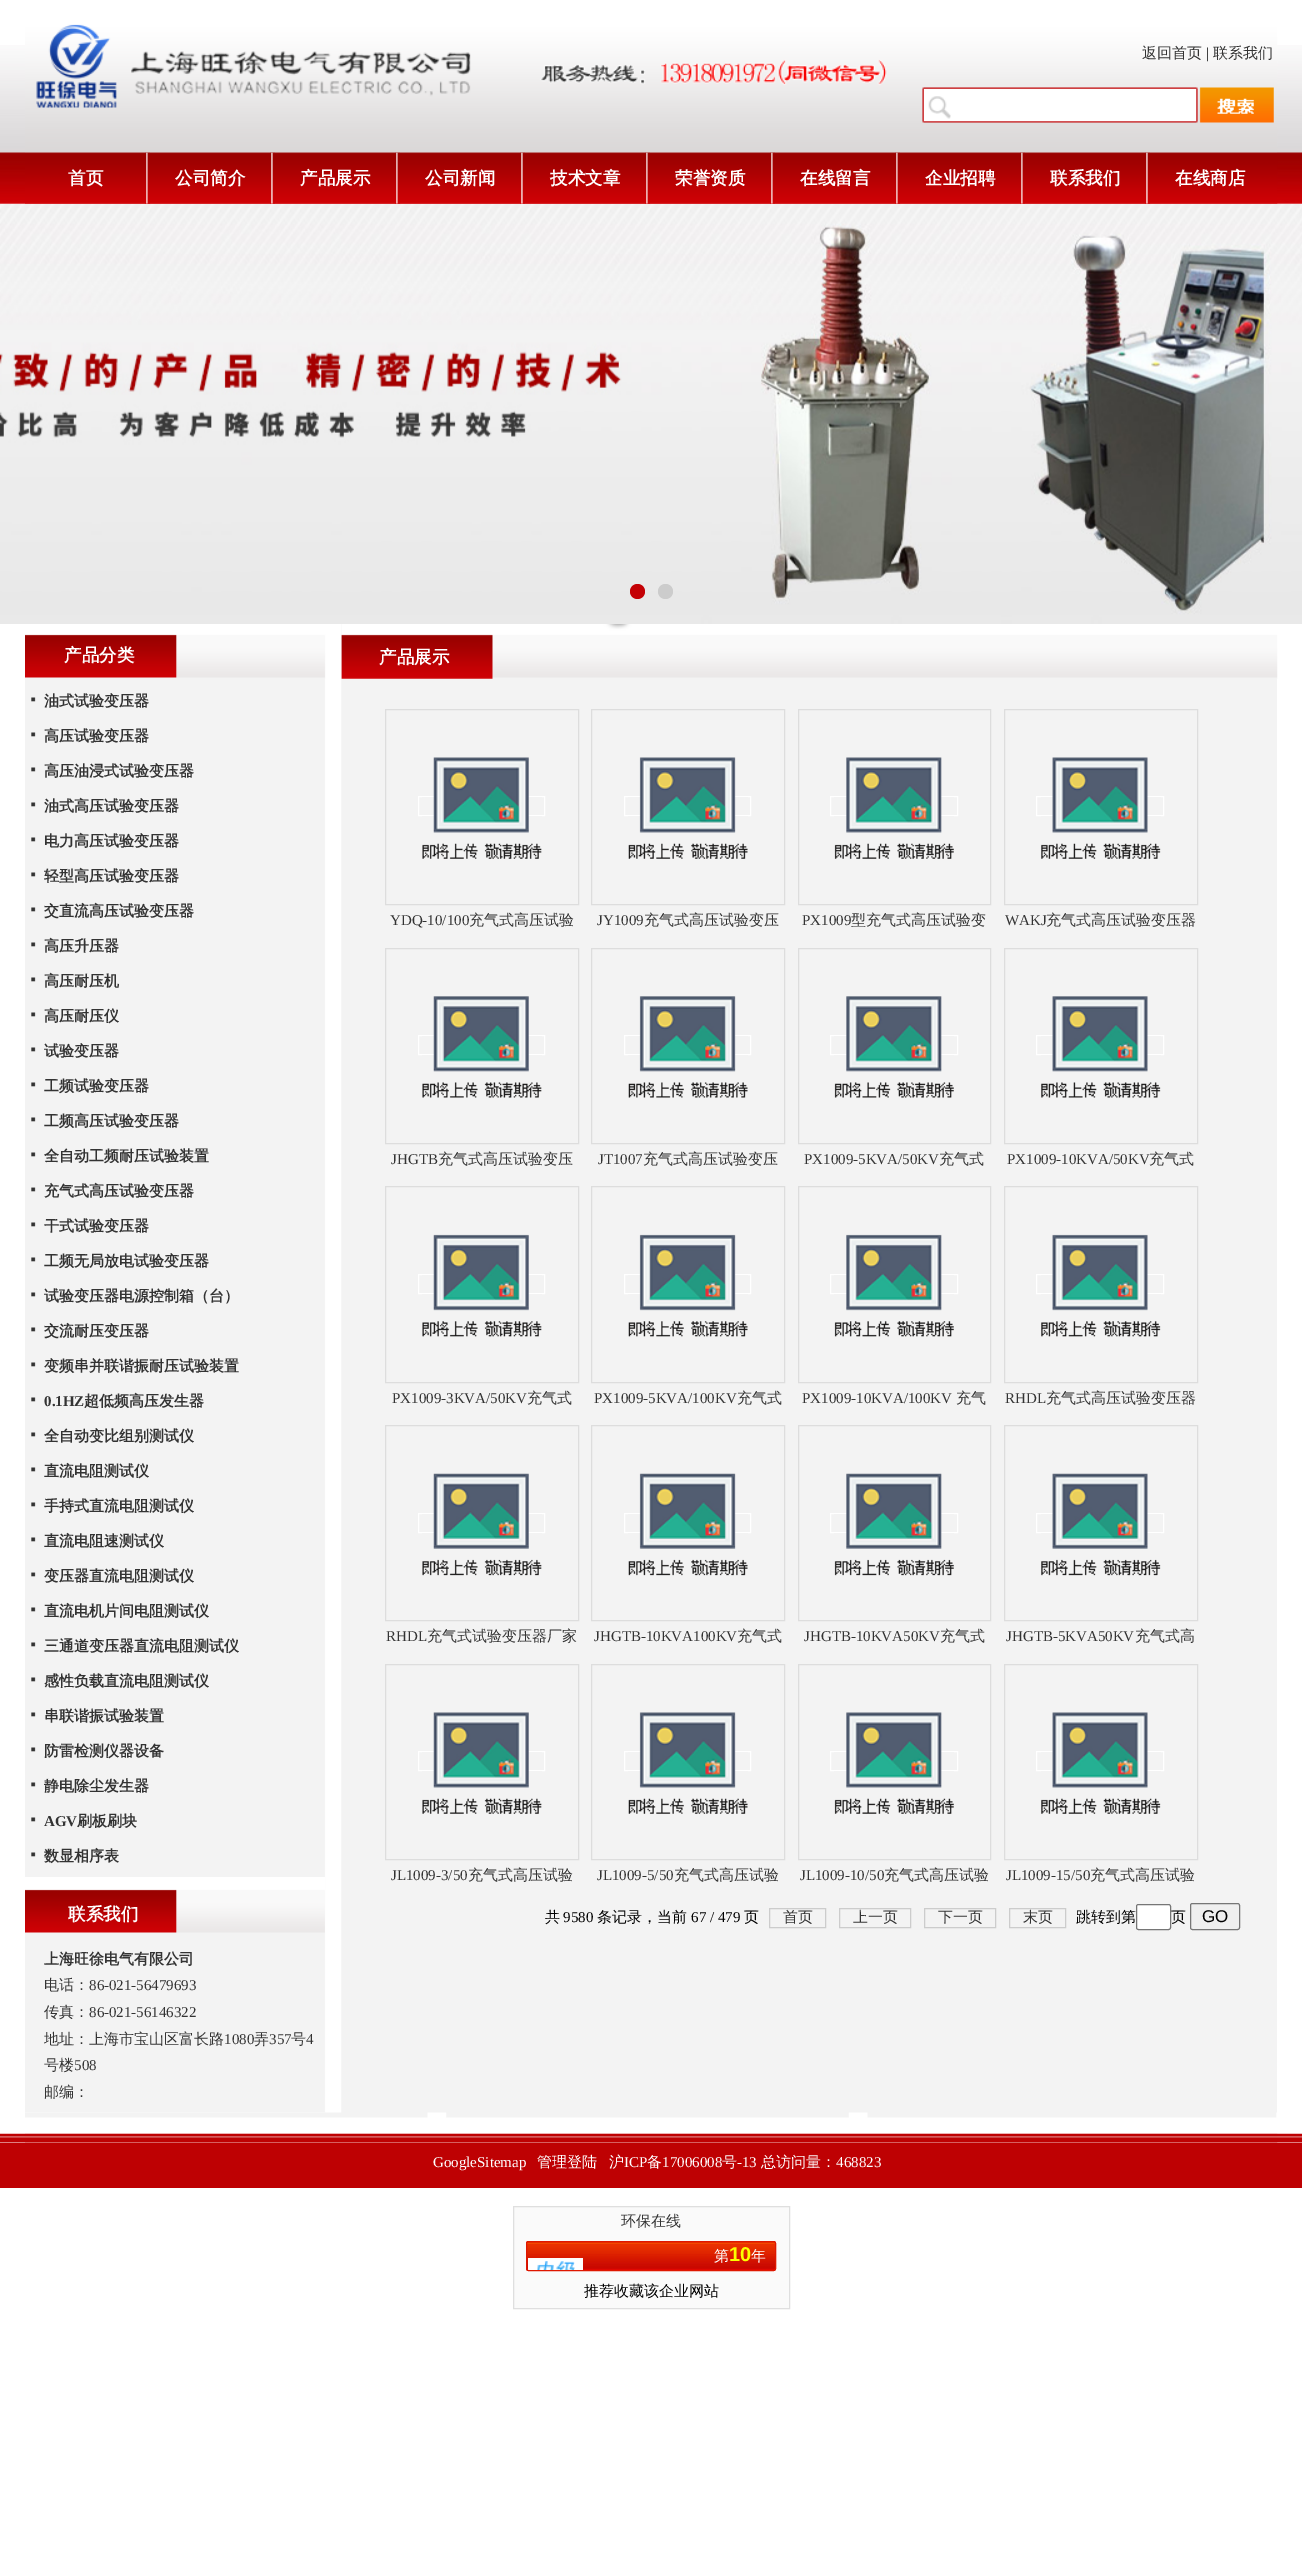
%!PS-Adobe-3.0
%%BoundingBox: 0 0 1302 2575
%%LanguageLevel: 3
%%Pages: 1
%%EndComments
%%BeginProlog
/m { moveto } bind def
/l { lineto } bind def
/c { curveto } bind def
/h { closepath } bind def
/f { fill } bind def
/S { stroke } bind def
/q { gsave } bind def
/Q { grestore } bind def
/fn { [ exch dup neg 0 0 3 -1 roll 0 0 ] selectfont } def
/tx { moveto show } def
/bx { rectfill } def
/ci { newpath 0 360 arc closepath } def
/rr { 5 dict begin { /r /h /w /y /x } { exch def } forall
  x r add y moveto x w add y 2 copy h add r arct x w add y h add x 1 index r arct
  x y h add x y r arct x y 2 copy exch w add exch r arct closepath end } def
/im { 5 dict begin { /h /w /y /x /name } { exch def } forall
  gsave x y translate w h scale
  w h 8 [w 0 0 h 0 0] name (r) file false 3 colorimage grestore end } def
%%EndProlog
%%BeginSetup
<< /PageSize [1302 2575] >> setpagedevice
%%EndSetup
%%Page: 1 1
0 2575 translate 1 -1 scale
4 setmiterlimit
1 setgray
0 0 1302 2575 bx
(image0.raw) 0 45 1302 159 im
(image2.raw) 25 152 1253 52 im
(image3.raw) 145 152 5 52 im
(image4.raw) 270 152 5 52 im
(image5.raw) 395 152 5 52 im
(image6.raw) 520 152 5 52 im
(image3.raw) 645 152 5 52 im
(image7.raw) 770 152 5 52 im
(image8.raw) 895 152 5 52 im
(image9.raw) 1020 152 5 52 im
(image10.raw) 1145 152 5 52 im
(image1.raw) 25 24 1253 129 im
/WenQuanYiZenHei-Medium 15 fn
0.2 setgray
(返回首页) 1142 58 tx
/LiberationSerif-Regular 15 fn
0 setgray
(|) 1206 58 tx
/WenQuanYiZenHei-Medium 15 fn
0.2 setgray
(联系我们) 1213 58 tx
1 setgray
951 115 1 3 bx
/WenQuanYiZenHei-Bold 17.5 fn
(首页) 68 184 tx
(公司简介) 175 184 tx
(产品展示) 300 184 tx
(公司新闻) 425 184 tx
(技术文章) 550 184 tx
(荣誉资质) 675 184 tx
(在线留言) 800 184 tx
(企业招聘) 925 184 tx
(联系我们) 1050 184 tx
(在线商店) 1175 184 tx
(image11.raw) 0 204 1302 420 im
0.769 0.004 0.02 setrgbcolor
637.5 591.5 7.5 ci f
0.8 setgray
665.5 591.5 7.5 ci f
0.953 setgray
341 624 936 1489 bx
(image17.raw) 341 624 937 55 im
(image12.raw) 25 624 317 1489 im
(image13.raw) 25 624 317 55 im
1 setgray
(产品分类) 64 661 tx
(image14.raw) 31 697 5 5 im
/WenQuanYiZenHei-Bold 15 fn
0.2 setgray
(油式试验变压器) 44 706 tx
(image14.raw) 31 732 5 5 im
(高压试验变压器) 44 741 tx
(image14.raw) 31 767 5 5 im
(高压油浸式试验变压器) 44 776 tx
(image14.raw) 31 802 5 5 im
(油式高压试验变压器) 44 811 tx
(image14.raw) 31 837 5 5 im
(电力高压试验变压器) 44 846 tx
(image14.raw) 31 872 5 5 im
(轻型高压试验变压器) 44 881 tx
(image14.raw) 31 907 5 5 im
(交直流高压试验变压器) 44 916 tx
(image14.raw) 31 942 5 5 im
(高压升压器) 44 951 tx
(image14.raw) 31 977 5 5 im
(高压耐压机) 44 986 tx
(image14.raw) 31 1012 5 5 im
(高压耐压仪) 44 1021 tx
(image14.raw) 31 1047 5 5 im
(试验变压器) 44 1056 tx
(image14.raw) 31 1082 5 5 im
(工频试验变压器) 44 1091 tx
(image14.raw) 31 1117 5 5 im
(工频高压试验变压器) 44 1126 tx
(image14.raw) 31 1152 5 5 im
(全自动工频耐压试验装置) 44 1161 tx
(image15.raw) 31 1187 5 5 im
(充气式高压试验变压器) 44 1196 tx
(image14.raw) 31 1222 5 5 im
(干式试验变压器) 44 1231 tx
(image14.raw) 31 1257 5 5 im
(工频无局放电试验变压器) 44 1266 tx
(image14.raw) 31 1292 5 5 im
(试验变压器电源控制箱（台）) 44 1301 tx
(image14.raw) 31 1327 5 5 im
(交流耐压变压器) 44 1336 tx
(image14.raw) 31 1362 5 5 im
(变频串并联谐振耐压试验装置) 44 1371 tx
(image14.raw) 31 1397 5 5 im
/LiberationSerif-Bold 15 fn
(0.1HZ) 44 1406 tx
/WenQuanYiZenHei-Bold 15 fn
(超低频高压发生器) 84 1406 tx
(image14.raw) 31 1432 5 5 im
(全自动变比组别测试仪) 44 1441 tx
(image14.raw) 31 1467 5 5 im
(直流电阻测试仪) 44 1476 tx
(image14.raw) 31 1502 5 5 im
(手持式直流电阻测试仪) 44 1511 tx
(image14.raw) 31 1537 5 5 im
(直流电阻速测试仪) 44 1546 tx
(image15.raw) 31 1572 5 5 im
(变压器直流电阻测试仪) 44 1581 tx
(image14.raw) 31 1607 5 5 im
(直流电机片间电阻测试仪) 44 1616 tx
(image14.raw) 31 1642 5 5 im
(三通道变压器直流电阻测试仪) 44 1651 tx
(image14.raw) 31 1677 5 5 im
(感性负载直流电阻测试仪) 44 1686 tx
(image14.raw) 31 1712 5 5 im
(串联谐振试验装置) 44 1721 tx
(image14.raw) 31 1747 5 5 im
(防雷检测仪器设备) 44 1756 tx
(image14.raw) 31 1782 5 5 im
(静电除尘发生器) 44 1791 tx
(image14.raw) 31 1817 5 5 im
/LiberationSerif-Bold 15 fn
(AGV) 44 1826 tx
/WenQuanYiZenHei-Bold 15 fn
(刷板刷块) 77 1826 tx
(image14.raw) 31 1852 5 5 im
(数显相序表) 44 1861 tx
1 setgray
25 1877 300 7 bx
(image16.raw) 25 1884 300 49 im
/WenQuanYiZenHei-Bold 17.5 fn
(联系我们) 68 1920 tx
/WenQuanYiZenHei-Bold 15 fn
0.2 setgray
(上海旺徐电气有限公司) 44 1964 tx
/WenQuanYiZenHei-Medium 15 fn
(电话：) 44 1990 tx
/LiberationSerif-Regular 15 fn
(86-021-56479693) 89 1990 tx
/WenQuanYiZenHei-Medium 15 fn
(传真：) 44 2017 tx
/LiberationSerif-Regular 15 fn
(86-021-56146322) 89 2017 tx
/WenQuanYiZenHei-Medium 15 fn
(地址：上海市宝山区富长路) 44 2044 tx
/LiberationSerif-Regular 15 fn
(1080) 224 2044 tx
/WenQuanYiZenHei-Medium 15 fn
(弄) 254 2044 tx
/LiberationSerif-Regular 15 fn
(357) 269 2044 tx
/WenQuanYiZenHei-Medium 15 fn
(号) 291 2044 tx
/LiberationSerif-Regular 15 fn
(4) 306 2044 tx
/WenQuanYiZenHei-Medium 15 fn
(号楼) 44 2070 tx
/LiberationSerif-Regular 15 fn
(508) 74 2070 tx
/WenQuanYiZenHei-Medium 15 fn
(邮编：) 44 2097 tx
/WenQuanYiZenHei-Bold 17.5 fn
1 setgray
(产品展示) 379 663 tx
0.867 setgray
385.5 709.5 193 195 rectstroke
1 setgray
418.5 796.5 126 19 rectstroke
(image18.raw) 422 757 120 102 im
/LiberationSerif-Regular 15 fn
0.2 setgray
(YDQ-10/100) 390 925 tx
/WenQuanYiZenHei-Medium 15 fn
(充气式高压试验) 469 925 tx
0.867 setgray
591.5 709.5 193 195 rectstroke
1 setgray
624.5 796.5 126 19 rectstroke
(image19.raw) 628 757 120 102 im
/LiberationSerif-Regular 15 fn
0.2 setgray
(JY1009) 597 925 tx
/WenQuanYiZenHei-Medium 15 fn
(充气式高压试验变压) 644 925 tx
0.867 setgray
798.5 709.5 192 195 rectstroke
1 setgray
830.5 796.5 127 19 rectstroke
(image20.raw) 834 757 120 102 im
/LiberationSerif-Regular 15 fn
0.2 setgray
(PX1009) 802 925 tx
/WenQuanYiZenHei-Medium 15 fn
(型充气式高压试验变) 851 925 tx
0.867 setgray
1004.5 709.5 193 195 rectstroke
1 setgray
1036.5 796.5 127 19 rectstroke
(image21.raw) 1041 757 120 102 im
/LiberationSerif-Regular 15 fn
0.2 setgray
(WAKJ) 1005 925 tx
/WenQuanYiZenHei-Medium 15 fn
(充气式高压试验变压器) 1046 925 tx
0.867 setgray
385.5 948.5 193 195 rectstroke
1 setgray
418.5 1035.5 126 19 rectstroke
(image22.raw) 422 996 120 102 im
/LiberationSerif-Regular 15 fn
0.2 setgray
(JHGTB) 391 1164 tx
/WenQuanYiZenHei-Medium 15 fn
(充气式高压试验变压) 438 1164 tx
0.867 setgray
591.5 948.5 193 195 rectstroke
1 setgray
624.5 1035.5 126 19 rectstroke
(image23.raw) 628 996 120 102 im
/LiberationSerif-Regular 15 fn
0.2 setgray
(JT1007) 598 1164 tx
/WenQuanYiZenHei-Medium 15 fn
(充气式高压试验变压) 643 1164 tx
0.867 setgray
798.5 948.5 192 195 rectstroke
1 setgray
830.5 1035.5 127 19 rectstroke
(image24.raw) 834 996 120 102 im
/LiberationSerif-Regular 15 fn
0.2 setgray
(PX1009-5KVA/50KV) 804 1164 tx
/WenQuanYiZenHei-Medium 15 fn
(充气式) 939 1164 tx
0.867 setgray
1004.5 948.5 193 195 rectstroke
1 setgray
1036.5 1035.5 127 19 rectstroke
(image25.raw) 1041 996 120 102 im
/LiberationSerif-Regular 15 fn
0.2 setgray
(PX1009-10KVA/50KV) 1007 1164 tx
/WenQuanYiZenHei-Medium 15 fn
(充气式) 1149 1164 tx
0.867 setgray
385.5 1186.5 193 196 rectstroke
1 setgray
418.5 1274.5 126 19 rectstroke
(image26.raw) 422 1234 120 103 im
/LiberationSerif-Regular 15 fn
0.2 setgray
(PX1009-3KVA/50KV) 392 1403 tx
/WenQuanYiZenHei-Medium 15 fn
(充气式) 527 1403 tx
0.867 setgray
591.5 1186.5 193 196 rectstroke
1 setgray
624.5 1274.5 126 19 rectstroke
(image27.raw) 628 1234 120 103 im
/LiberationSerif-Regular 15 fn
0.2 setgray
(PX1009-5KVA/100KV) 594 1403 tx
/WenQuanYiZenHei-Medium 15 fn
(充气式) 737 1403 tx
0.867 setgray
798.5 1186.5 192 196 rectstroke
1 setgray
830.5 1274.5 127 19 rectstroke
(image28.raw) 834 1234 120 103 im
/LiberationSerif-Regular 15 fn
0.2 setgray
(PX1009-10KVA/100KV) 802 1403 tx
/WenQuanYiZenHei-Medium 15 fn
(充气) 956 1403 tx
0.867 setgray
1004.5 1186.5 193 196 rectstroke
1 setgray
1036.5 1274.5 127 19 rectstroke
(image29.raw) 1041 1234 120 103 im
/LiberationSerif-Regular 15 fn
0.2 setgray
(RHDL) 1005 1403 tx
/WenQuanYiZenHei-Medium 15 fn
(充气式高压试验变压器) 1046 1403 tx
0.867 setgray
385.5 1425.5 193 195 rectstroke
1 setgray
418.5 1513.5 126 19 rectstroke
(image30.raw) 422 1473 120 103 im
/LiberationSerif-Regular 15 fn
0.2 setgray
(RHDL) 386 1641 tx
/WenQuanYiZenHei-Medium 15 fn
(充气式试验变压器厂家) 427 1641 tx
0.867 setgray
591.5 1425.5 193 195 rectstroke
1 setgray
624.5 1513.5 126 19 rectstroke
(image31.raw) 628 1473 120 103 im
/LiberationSerif-Regular 15 fn
0.2 setgray
(JHGTB-10KVA100KV) 594 1641 tx
/WenQuanYiZenHei-Medium 15 fn
(充气式) 737 1641 tx
0.867 setgray
798.5 1425.5 192 195 rectstroke
1 setgray
830.5 1513.5 127 19 rectstroke
(image32.raw) 834 1473 120 103 im
/LiberationSerif-Regular 15 fn
0.2 setgray
(JHGTB-10KVA50KV) 804 1641 tx
/WenQuanYiZenHei-Medium 15 fn
(充气式) 940 1641 tx
0.867 setgray
1004.5 1425.5 193 195 rectstroke
1 setgray
1036.5 1513.5 127 19 rectstroke
(image33.raw) 1041 1473 120 103 im
/LiberationSerif-Regular 15 fn
0.2 setgray
(JHGTB-5KVA50KV) 1006 1641 tx
/WenQuanYiZenHei-Medium 15 fn
(充气式高) 1135 1641 tx
0.867 setgray
385.5 1664.5 193 195 rectstroke
1 setgray
418.5 1751.5 126 19 rectstroke
(image18.raw) 422 1712 120 102 im
/LiberationSerif-Regular 15 fn
0.2 setgray
(JL1009-3/50) 391 1880 tx
/WenQuanYiZenHei-Medium 15 fn
(充气式高压试验) 468 1880 tx
0.867 setgray
591.5 1664.5 193 195 rectstroke
1 setgray
624.5 1751.5 126 19 rectstroke
(image19.raw) 628 1712 120 102 im
/LiberationSerif-Regular 15 fn
0.2 setgray
(JL1009-5/50) 597 1880 tx
/WenQuanYiZenHei-Medium 15 fn
(充气式高压试验) 674 1880 tx
0.867 setgray
798.5 1664.5 192 195 rectstroke
1 setgray
830.5 1751.5 127 19 rectstroke
(image20.raw) 834 1712 120 102 im
/LiberationSerif-Regular 15 fn
0.2 setgray
(JL1009-10/50) 800 1880 tx
/WenQuanYiZenHei-Medium 15 fn
(充气式高压试验) 884 1880 tx
0.867 setgray
1004.5 1664.5 193 195 rectstroke
1 setgray
1036.5 1751.5 127 19 rectstroke
(image21.raw) 1041 1712 120 102 im
/LiberationSerif-Regular 15 fn
0.2 setgray
(JL1009-15/50) 1006 1880 tx
/WenQuanYiZenHei-Medium 15 fn
(充气式高压试验) 1090 1880 tx
0 setgray
(共) 545 1922 tx
/LiberationSerif-Regular 15 fn
(9580) 563 1922 tx
/WenQuanYiZenHei-Medium 15 fn
(条记录，当前) 597 1922 tx
/LiberationSerif-Regular 15 fn
(67 / 479) 691 1922 tx
/WenQuanYiZenHei-Medium 15 fn
(页) 744 1922 tx
0.8 setgray
769.5 1908.5 56 19 rectstroke
0.2 setgray
(首页) 783 1922 tx
0.8 setgray
839.5 1908.5 71 19 rectstroke
0.2 setgray
(上一页) 853 1922 tx
0.8 setgray
924.5 1908.5 71 19 rectstroke
0.2 setgray
(下一页) 938 1922 tx
0.8 setgray
1009.5 1908.5 56 19 rectstroke
0.2 setgray
(末页) 1023 1922 tx
0 setgray
(跳转到第) 1076 1922 tx
1 setgray
1136.5 1904.5 34 25 2 rr q f Q
0.463 setgray
S
0 setgray
(页) 1171 1922 tx
0.937 setgray
1190.5 1903.5 49 26 2 rr q f Q
0.463 setgray
S
/LiberationSans-Regular 17 fn
0 setgray
(GO) 1202 1922 tx
(image34.raw) 25 2112 1252 6 im
(image35.raw) 0 2133 1302 10 im
(image36.raw) 25 2133 1253 10 im
0.745 0.004 0.012 setrgbcolor
0 2143 1302 45 bx
/LiberationSerif-Regular 15 fn
1 setgray
(GoogleSitemap) 433 2167 tx
/WenQuanYiZenHei-Medium 15 fn
(管理登陆) 537 2167 tx
(沪) 609 2167 tx
/LiberationSerif-Regular 15 fn
(ICP) 624 2167 tx
/WenQuanYiZenHei-Medium 15 fn
(备) 647 2167 tx
/LiberationSerif-Regular 15 fn
(17006008) 662 2167 tx
/WenQuanYiZenHei-Medium 15 fn
(号) 722 2167 tx
/LiberationSerif-Regular 15 fn
(-13) 737 2167 tx
/WenQuanYiZenHei-Medium 15 fn
(总访问量：) 761 2167 tx
/LiberationSerif-Regular 15 fn
(468823) 836 2167 tx
0.98 setgray
513.5 2206.5 m 789.5 2206.5 l 789.5 2308.5 l 513.5 2308.5 l h q f Q
0.875 setgray
S
/WenQuanYiZenHei-Medium 15 fn
0.2 setgray
(环保在线) 621 2226 tx
0.875 0.09 0 setrgbcolor
526 2241 250 30 2.5 rr f
(image37.raw) 526 2242 251 28 im
526.5 2241.5 249 29 2 rr S
1 setgray
528 2258 m 583 2258 l 583 2270 l 529 2270 l 528.5 2270 528 2269.5 528 2269 c h f
(image38.raw) 537 2261 38 9 im
(第) 714 2261 tx
/LiberationSans-Bold 20 fn
0.988 1 0 setrgbcolor
(10) 729 2261 tx
/WenQuanYiZenHei-Medium 15 fn
1 setgray
(年) 751 2261 tx
0 setgray
(推荐收藏该企业网站) 584 2296 tx
showpage
%%EOF
